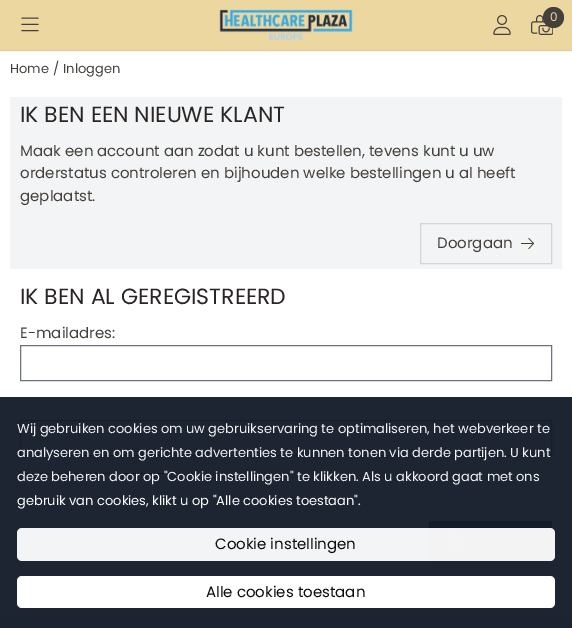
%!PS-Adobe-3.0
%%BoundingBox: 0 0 572 628
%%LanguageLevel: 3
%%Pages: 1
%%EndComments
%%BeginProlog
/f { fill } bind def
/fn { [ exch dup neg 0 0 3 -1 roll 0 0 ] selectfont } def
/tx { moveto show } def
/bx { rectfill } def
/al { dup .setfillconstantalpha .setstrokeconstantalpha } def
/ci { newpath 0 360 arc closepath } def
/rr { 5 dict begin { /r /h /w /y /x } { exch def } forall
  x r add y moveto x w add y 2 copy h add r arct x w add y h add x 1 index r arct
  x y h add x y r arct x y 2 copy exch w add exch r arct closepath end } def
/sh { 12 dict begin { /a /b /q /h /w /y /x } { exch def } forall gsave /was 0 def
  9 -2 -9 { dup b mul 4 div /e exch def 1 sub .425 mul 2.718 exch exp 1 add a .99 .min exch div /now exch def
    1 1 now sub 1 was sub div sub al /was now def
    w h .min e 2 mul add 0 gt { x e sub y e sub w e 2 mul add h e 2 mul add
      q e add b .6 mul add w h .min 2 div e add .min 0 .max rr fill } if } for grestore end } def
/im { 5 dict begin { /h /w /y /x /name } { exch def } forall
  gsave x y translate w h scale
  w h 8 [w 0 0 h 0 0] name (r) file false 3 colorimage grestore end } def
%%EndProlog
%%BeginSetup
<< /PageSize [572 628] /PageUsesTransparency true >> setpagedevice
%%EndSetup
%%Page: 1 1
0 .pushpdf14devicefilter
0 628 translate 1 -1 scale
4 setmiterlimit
1 setgray
0 0 572 628 bx
0.114 0.141 0.196 setrgbcolor
0 397 572 219 bx
0 setgray
0 1 572 51 0 1 0.05 sh
0.925 0.843 0.631 setrgbcolor
0 0 572 50 bx
0.878 0.8 0.6 setrgbcolor
0 50 572 1 bx
(image0.raw) 21 17 18 15 im
(image1.raw) 219 9 134 32 im
(image2.raw) 493 15 18 20 im
(image3.raw) 531 15 22 20 im
0.267 0.251 0.235 setrgbcolor
553.5 17.5 10.5 ci f
/Poppins-Regular 12 fn
0.925 0.843 0.631 setrgbcolor
(0) 550 21 tx
/Poppins-Regular 13 fn
0.267 0.251 0.235 setrgbcolor
(Home) 10 73 tx
(/) 53 73 tx
(Inloggen) 63 73 tx
0.953 0.957 0.965 setrgbcolor
10 97 552 172 bx
/Poppins-Regular 22 fn
0.161 0.145 0.141 setrgbcolor
(IK BEN EEN NIEUWE KLANT) 20 122 tx
/Poppins-Regular 15 fn
0.267 0.251 0.235 setrgbcolor
(Maak een account aan zodat u kunt bestellen, tevens kunt u uw) 20 156 tx
(orderstatus controleren en bijhouden welke bestellingen u al heeft) 20 178 tx
(geplaatst.) 20 201 tx
0.839 0.827 0.82 setrgbcolor
420.5 223.5 131 40 rectstroke
0.267 0.251 0.235 setrgbcolor
(Doorgaan) 437 248 tx
(image4.raw) 521 237 13 13 im
/Poppins-Regular 22 fn
0.161 0.145 0.141 setrgbcolor
(IK BEN AL GEREGISTREERD) 20 304 tx
/Poppins-Regular 15 fn
0.267 0.251 0.235 setrgbcolor
(E-mailadres:) 20 338 tx
0.42 0.447 0.502 setrgbcolor
20.5 345.5 531 35 rectstroke
0.086 0.114 0.169 setrgbcolor
20.5 420.5 531 35 rectstroke
0.078 0.102 0.157 setrgbcolor
20 473 152 1 bx
429 521 123 40 bx
(image5.raw) 447 534 13 15 im
/Poppins-Regular 13 fn
0.957 0.957 0.961 setrgbcolor
(Wij gebruiken cookies om uw gebruikservaring te optimaliseren, het webverkeer te) 17 433 tx
(analyseren en om gerichte advertenties te kunnen tonen via derde partijen. U kunt) 17 457 tx
(deze beheren door op "Cookie instellingen" te klikken. Als u akkoord gaat met ons) 17 481 tx
1 setgray
(gebruik van cookies, klikt u op "Alle cookies toestaan".) 17 505 tx
0.95 al
17 528 538 33 5 rr f
/Poppins-Regular 15 fn
1 al
0.051 setgray
(Cookie instellingen) 215 549 tx
1 setgray
17 576 538 32 5 rr f
0.051 setgray
(Alle cookies toestaan) 206 597 tx
0.11 0.137 0.192 setrgbcolor
0 616 572 12 bx
.poppdf14devicefilter showpage
%%EOF
